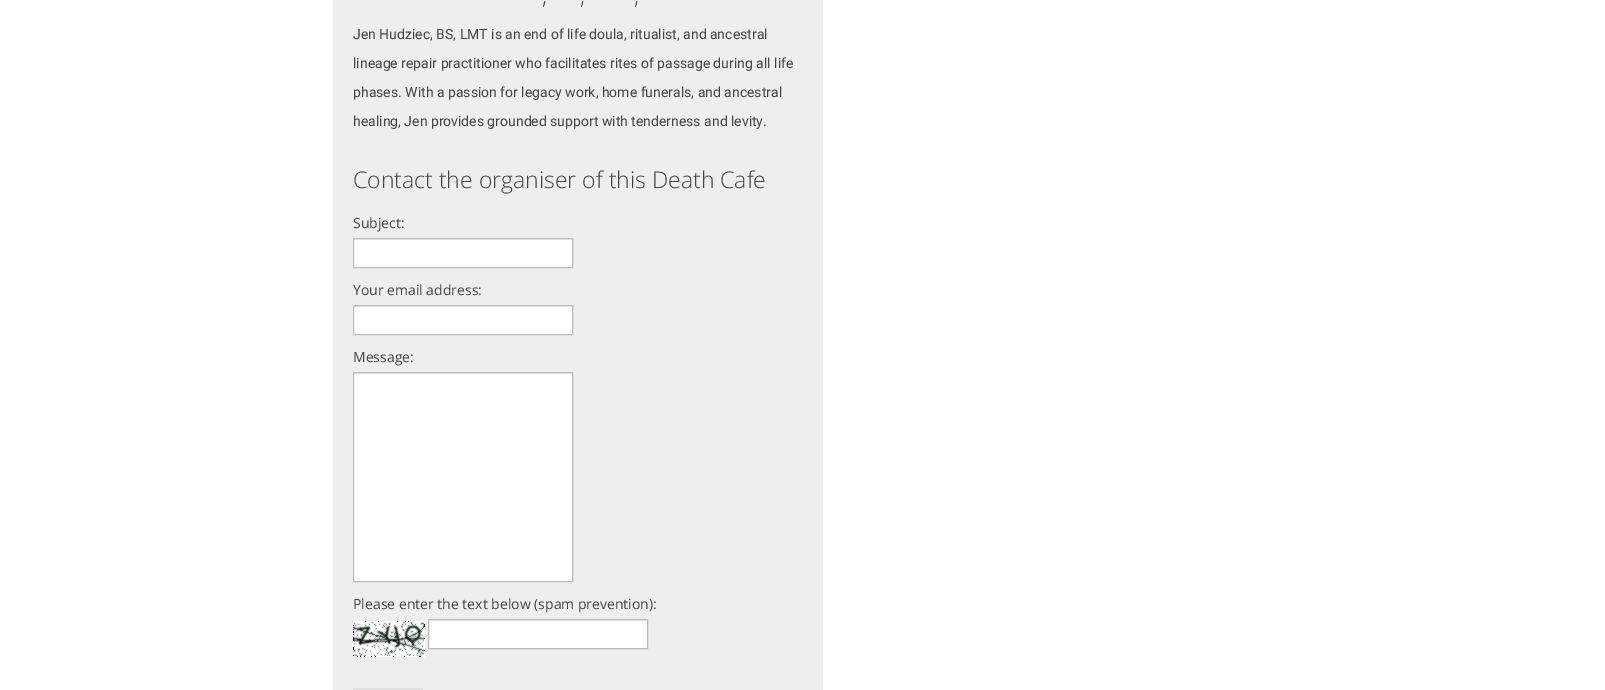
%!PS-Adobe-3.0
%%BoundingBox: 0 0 1605 690
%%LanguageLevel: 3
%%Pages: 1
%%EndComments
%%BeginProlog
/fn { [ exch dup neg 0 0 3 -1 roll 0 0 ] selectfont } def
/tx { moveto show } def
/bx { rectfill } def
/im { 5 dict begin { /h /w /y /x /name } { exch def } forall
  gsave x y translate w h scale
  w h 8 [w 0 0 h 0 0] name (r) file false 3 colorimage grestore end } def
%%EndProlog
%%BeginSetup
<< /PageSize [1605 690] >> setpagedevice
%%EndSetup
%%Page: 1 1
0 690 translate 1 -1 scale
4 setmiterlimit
1 setgray
0 0 1605 690 bx
0.933 setgray
333 0 490 690 bx
/OpenSans-Light 23 fn
0.267 setgray
(,) 542 4 tx
(,) 580 4 tx
(,) 634 4 tx
/Roboto-Regular 14 fn
(Jen Hudziec, BS, LMT is an end of life doula, ritualist, and ancestral) 353 39 tx
(lineage repair practitioner who facilitates rites of passage during all life) 353 68 tx
(phases. With a passion for legacy work, home funerals, and ancestral) 353 97 tx
(healing, Jen provides grounded support with tenderness and levity.) 353 126 tx
/OpenSans-Light 23 fn
(Contact the organiser of this Death Cafe) 353 188 tx
/OpenSans-Regular 14 fn
(Subject:) 353 228 tx
1 setgray
354 240 218 27 bx
0.733 setgray
353.5 238.5 219 29 rectstroke
0.267 setgray
(Your email address:) 353 295 tx
1 setgray
354 307 218 27 bx
0.733 setgray
353.5 305.5 219 29 rectstroke
0.267 setgray
(Message:) 353 362 tx
1 setgray
354 374 218 207 bx
0.733 setgray
353.5 372.5 219 209 rectstroke
0.267 setgray
(Please enter the text below \(spam prevention\):) 353 609 tx
(image0.raw) 353 621 72 36 im
1 setgray
429 621 218 27 bx
0.733 setgray
428.5 619.5 219 29 rectstroke
0.875 setgray
353 688 70 2 bx
showpage
%%EOF
